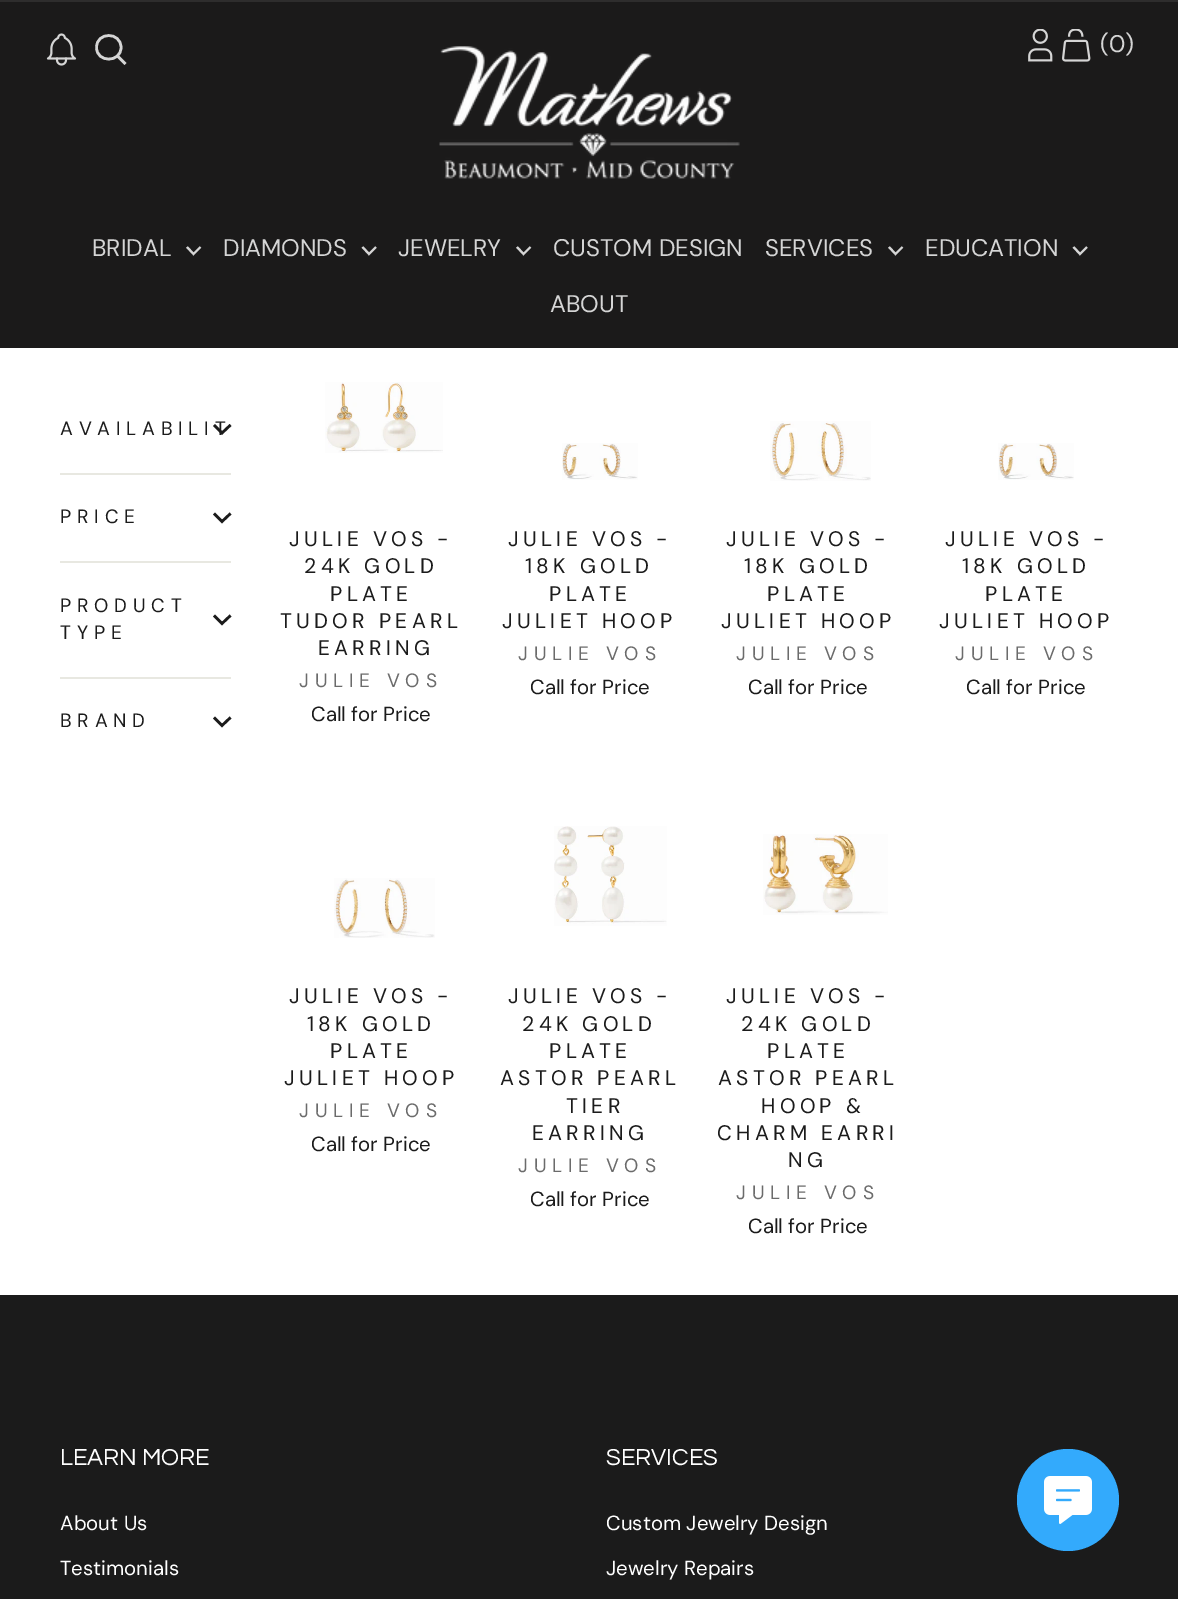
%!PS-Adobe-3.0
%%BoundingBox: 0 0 1178 1599
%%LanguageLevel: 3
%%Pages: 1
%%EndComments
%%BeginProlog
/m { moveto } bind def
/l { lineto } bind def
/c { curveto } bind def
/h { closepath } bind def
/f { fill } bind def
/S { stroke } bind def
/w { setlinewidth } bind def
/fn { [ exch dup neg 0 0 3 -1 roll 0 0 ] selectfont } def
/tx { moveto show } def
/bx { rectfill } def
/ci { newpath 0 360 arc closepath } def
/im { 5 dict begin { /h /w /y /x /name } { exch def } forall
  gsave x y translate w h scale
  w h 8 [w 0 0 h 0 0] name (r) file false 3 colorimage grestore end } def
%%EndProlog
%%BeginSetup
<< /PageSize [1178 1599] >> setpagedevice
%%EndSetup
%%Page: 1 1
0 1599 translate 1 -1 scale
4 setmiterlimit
1 setgray
0 0 1178 1599 bx
0.106 0.102 0.102 setrgbcolor
0 2 1178 346 bx
0.18 0.176 0.176 setrgbcolor
0 0 1178 2 bx
(image0.raw) 46 33 31 33 im
0.835 setgray
2.6 w
121 47.5 m 121 63 96.5 63 96.5 47.5 c 96.5 31.5 121 31.5 121 47.5 c h 125.5 64 m 117.5 56 l S
(image1.raw) 439 46 301 133 im
(image2.raw) 1028 29 25 33 im
(image3.raw) 1062 29 29 33 im
/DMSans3-Regular 24 fn
(\(0\)) 1100 52 tx
(BRIDAL) 92 256 tx
2.1 w
187 247 m 193.5 254 l 200.5 247 l S
(DIAMONDS) 223 256 tx
362.5 247 m 369 254 l 376 247 l S
(JEWELRY) 398 256 tx
517 247 m 523.5 254 l 530.5 247 l S
(CUSTOM DESIGN) 553 256 tx
(SERVICES) 765 256 tx
889 247 m 895.5 254 l 902.5 247 l S
(EDUCATION) 925 256 tx
1073.5 247 m 1080 254 l 1087 247 l S
(ABOUT) 550 312 tx
/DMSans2-Regular 19.25 fn
0.106 setgray
60 435 m 5.75 0 (AVAILABILIT) ashow
2.6 w
214 425 m 222 433 l 230.5 425 l S
0.91 0.91 0.882 setrgbcolor
60 473 171 2 bx
0.106 setgray
60 523 m 5.75 0 (PRICE) ashow
214 513.5 m 222 521.5 l 230.5 513.5 l S
0.91 0.91 0.882 setrgbcolor
60 561 171 2 bx
0.106 setgray
60 612 m 5.75 0 (PRODUCT) ashow
214 615.5 m 222 623.5 l 230.5 615.5 l S
60 639 m 5.75 0 (TYPE) ashow
0.91 0.91 0.882 setrgbcolor
60 677 171 2 bx
0.106 setgray
60 727 m 5.75 0 (BRAND) ashow
214 717.5 m 222 725.5 l 230.5 717.5 l S
(image4.raw) 325 382 118 71 im
/DMSans2-Regular 21 fn
289 546 m 4.25 0 (JULIE VOS -) ashow
304 573 m 4.25 0 (24K GOLD) ashow
330 601 m 4.25 0 (PLATE) ashow
280 628 m 4.25 0 (TUDOR PEARL) ashow
318 655 m 4.25 0 (EARRING) ashow
/DMSans2-Regular 19.25 fn
0.42 setgray
299 687 m 5.75 0 (JULIE VOS) ashow
/DMSans-Regular 20.4 fn
0.106 setgray
(Call for Price) 311 721 tx
(image5.raw) 562 443 76 37 im
/DMSans2-Regular 21 fn
508 546 m 4.25 0 (JULIE VOS -) ashow
525 573 m 4.25 0 (18K GOLD) ashow
549 601 m 4.25 0 (PLATE) ashow
502 628 m 4.25 0 (JULIET HOOP) ashow
/DMSans2-Regular 19.25 fn
0.42 setgray
518 660 m 5.75 0 (JULIE VOS) ashow
/DMSans-Regular 20.4 fn
0.106 setgray
(Call for Price) 530 694 tx
(image6.raw) 770 421 101 60 im
/DMSans2-Regular 21 fn
726 546 m 4.25 0 (JULIE VOS -) ashow
744 573 m 4.25 0 (18K GOLD) ashow
767 601 m 4.25 0 (PLATE) ashow
721 628 m 4.25 0 (JULIET HOOP) ashow
/DMSans2-Regular 19.25 fn
0.42 setgray
736 660 m 5.75 0 (JULIE VOS) ashow
/DMSans-Regular 20.4 fn
0.106 setgray
(Call for Price) 748 694 tx
(image7.raw) 998 443 76 37 im
/DMSans2-Regular 21 fn
945 546 m 4.25 0 (JULIE VOS -) ashow
962 573 m 4.25 0 (18K GOLD) ashow
985 601 m 4.25 0 (PLATE) ashow
939 628 m 4.25 0 (JULIET HOOP) ashow
/DMSans2-Regular 19.25 fn
0.42 setgray
955 660 m 5.75 0 (JULIE VOS) ashow
/DMSans-Regular 20.4 fn
0.106 setgray
(Call for Price) 966 694 tx
(image8.raw) 334 878 101 60 im
/DMSans2-Regular 21 fn
289 1003 m 4.25 0 (JULIE VOS -) ashow
307 1031 m 4.25 0 (18K GOLD) ashow
330 1058 m 4.25 0 (PLATE) ashow
284 1085 m 4.25 0 (JULIET HOOP) ashow
/DMSans2-Regular 19.25 fn
0.42 setgray
299 1117 m 5.75 0 (JULIE VOS) ashow
/DMSans-Regular 20.4 fn
0.106 setgray
(Call for Price) 311 1151 tx
(image9.raw) 554 826 113 100 im
/DMSans2-Regular 21 fn
508 1003 m 4.25 0 (JULIE VOS -) ashow
522 1031 m 4.25 0 (24K GOLD) ashow
549 1058 m 4.25 0 (PLATE) ashow
500 1085 m 4.25 0 (ASTOR PEARL) ashow
566 1113 m 4.25 0 (TIER) ashow
532 1140 m 4.25 0 (EARRING) ashow
/DMSans2-Regular 19.25 fn
0.42 setgray
518 1172 m 5.75 0 (JULIE VOS) ashow
/DMSans-Regular 20.4 fn
0.106 setgray
(Call for Price) 530 1206 tx
(image10.raw) 763 834 125 81 im
/DMSans2-Regular 21 fn
726 1003 m 4.25 0 (JULIE VOS -) ashow
741 1031 m 4.25 0 (24K GOLD) ashow
767 1058 m 4.25 0 (PLATE) ashow
718 1085 m 4.25 0 (ASTOR PEARL) ashow
761 1113 m 4.25 0 (HOOP &) ashow
717 1140 m 4.25 0 (CHARM EARRI) ashow
788 1167 m 4.25 0 (NG) ashow
/DMSans2-Regular 19.25 fn
0.42 setgray
736 1199 m 5.75 0 (JULIE VOS) ashow
/DMSans-Regular 20.4 fn
0.106 setgray
(Call for Price) 748 1233 tx
0 1295 1178 304 bx
/Questrial-Regular 24 fn
1 setgray
(LEARN MORE) 60 1465 tx
/DMSans-Regular 20.4 fn
(About Us) 60 1530 tx
(Testimonials) 60 1575 tx
/Questrial-Regular 24 fn
(SERVICES) 606 1465 tx
/DMSans-Regular 20.4 fn
(Custom Jewelry Design) 606 1530 tx
(Jewelry Repairs) 606 1575 tx
0.2 0.667 0.988 setrgbcolor
1068 1500 51 ci f
(image11.raw) 1044 1476 48 48 im
showpage
%%EOF
